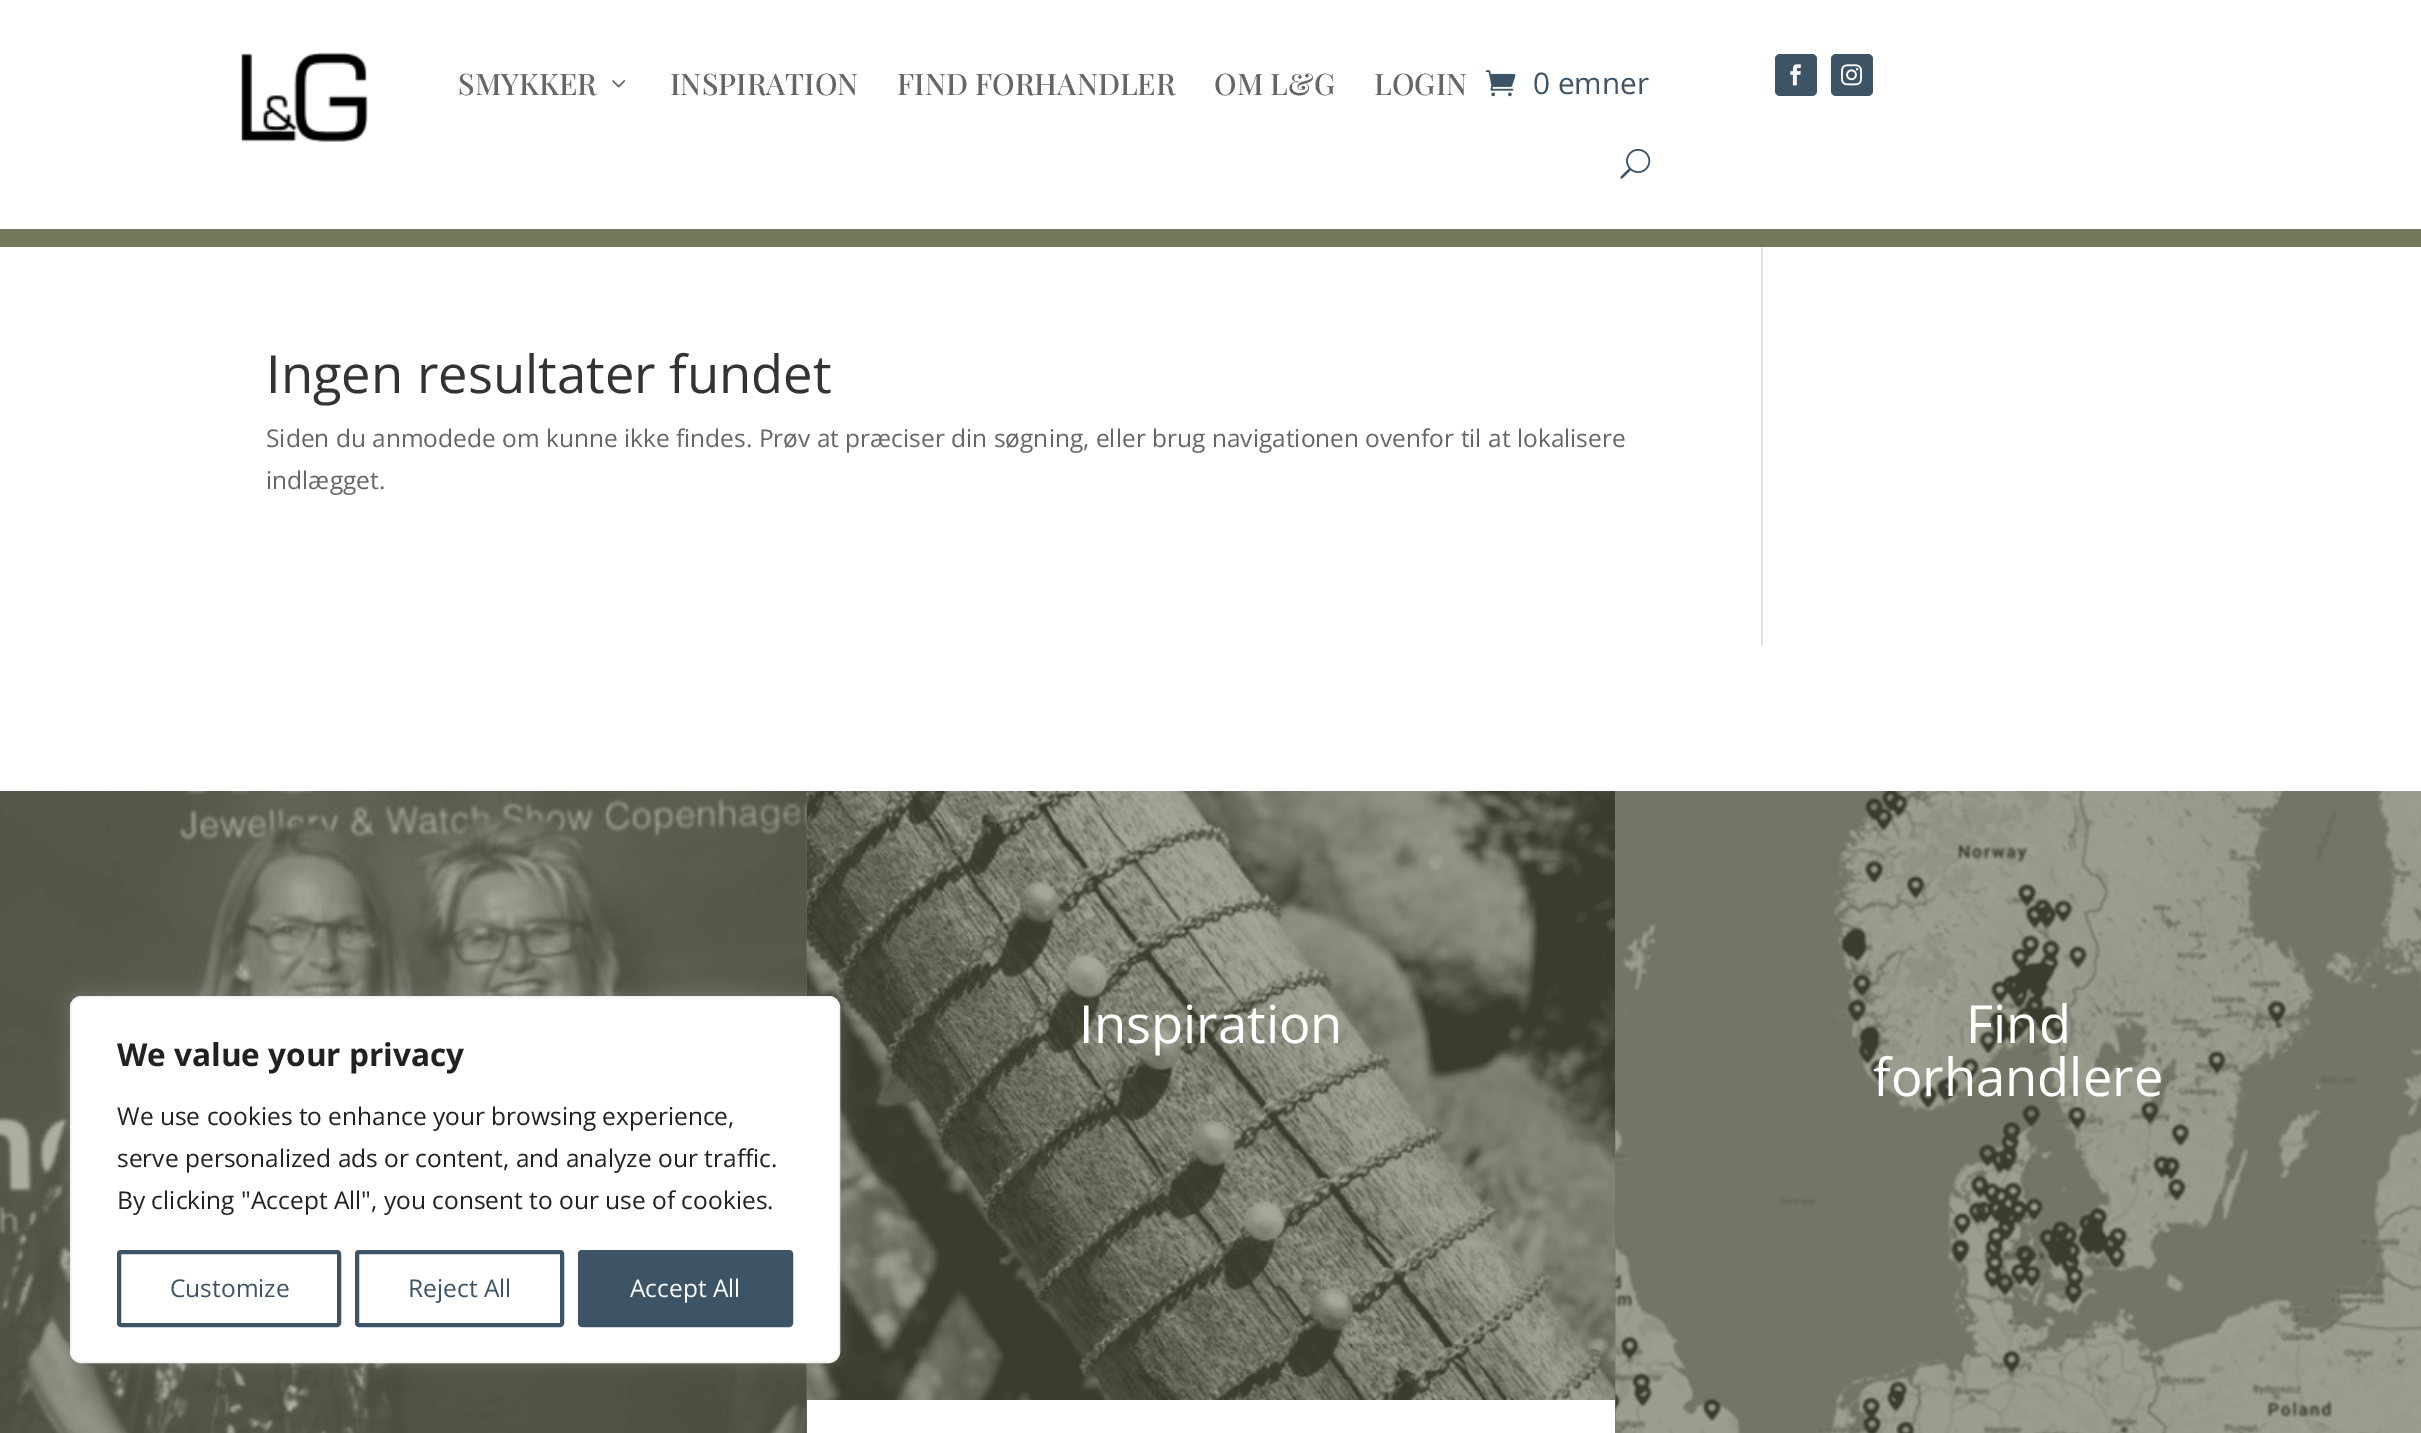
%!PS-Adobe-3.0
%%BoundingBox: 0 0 2421 1433
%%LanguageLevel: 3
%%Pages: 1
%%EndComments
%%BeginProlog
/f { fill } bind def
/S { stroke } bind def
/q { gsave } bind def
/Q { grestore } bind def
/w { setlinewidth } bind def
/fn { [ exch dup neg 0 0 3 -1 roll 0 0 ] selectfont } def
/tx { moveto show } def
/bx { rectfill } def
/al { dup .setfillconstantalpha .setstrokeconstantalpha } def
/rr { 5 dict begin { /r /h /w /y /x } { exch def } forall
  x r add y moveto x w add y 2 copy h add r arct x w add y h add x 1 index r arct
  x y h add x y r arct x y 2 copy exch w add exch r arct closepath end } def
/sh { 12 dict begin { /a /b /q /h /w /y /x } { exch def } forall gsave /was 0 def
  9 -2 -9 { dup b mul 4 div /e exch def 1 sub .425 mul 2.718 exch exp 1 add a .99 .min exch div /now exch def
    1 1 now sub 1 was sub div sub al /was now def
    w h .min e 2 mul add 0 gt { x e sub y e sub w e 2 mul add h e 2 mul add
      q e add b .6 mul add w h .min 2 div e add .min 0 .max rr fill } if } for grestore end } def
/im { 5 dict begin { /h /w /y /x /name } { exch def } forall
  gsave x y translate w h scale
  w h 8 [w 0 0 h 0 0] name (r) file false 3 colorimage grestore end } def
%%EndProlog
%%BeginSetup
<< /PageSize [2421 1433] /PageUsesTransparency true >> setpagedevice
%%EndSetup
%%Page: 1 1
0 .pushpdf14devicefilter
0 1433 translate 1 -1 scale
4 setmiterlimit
1 setgray
0 0 2421 1433 bx
0.447 0.475 0.357 setrgbcolor
0 229 2421 18 bx
(image0.raw) 241 52 127 90 im
/PlayfairDisplay-Medium 29.75 fn
0.4 setgray
(SMYKKER) 458 95 tx
(image1.raw) 612 80 14 8 im
(INSPIRATION) 670 95 tx
(FIND FORHANDLER) 897 95 tx
(OM L&G) 1214 95 tx
(LOGIN) 1374 95 tx
(image2.raw) 1485 70 31 27 im
/OpenSans-Regular 29.75 fn
0.239 0.329 0.404 setrgbcolor
(0 emner) 1533 94 tx
(image3.raw) 1620 148 31 31 im
1775 54 42 42 5 rr f
(image4.raw) 1790 64 11 22 im
1831 54 42 42 5 rr f
(image5.raw) 1841 64 21 22 im
/OpenSans-Regular 52.5 fn
0.2 setgray
(Ingen resultater fundet) 266 393 tx
/OpenSans-Regular 24.5 fn
0.4 setgray
(Siden du anmodede om kunne ikke findes. Prøv at præciser din søgning, eller brug navigationen ovenfor til at lokalisere) 266 447 tx
(indlægget.) 266 489 tx
0.886 setgray
1761 247 2 399 bx
0.447 0.475 0.357 setrgbcolor
806 791 1 642 bx
(image6.raw) 0 791 807 642 im
(image7.raw) 806 791 809 609 im
/OpenSans-Regular 52.5 fn
1 setgray
(Inspiration) 1079 1043 tx
0.447 0.475 0.357 setrgbcolor
1615 791 1 642 bx
(image8.raw) 1615 791 806 642 im
0.5 al
1615 791 806 642 bx
1 al
1 setgray
(Find) 1966 1043 tx
(forhandlere) 1873 1096 tx
0.675 0.671 0.671 setrgbcolor
70 994 770 368 11 9 0.3 sh
1 setgray
71 997 768 365 10 rr q f Q
0.957 setgray
2 w
S
/OpenSans-Bold 31.5 fn
0.129 setgray
(We value your privacy) 117 1066 tx
/OpenSans-Regular 24.5 fn
(We use cookies to enhance your browsing experience,) 117 1125 tx
(serve personalized ads or content, and analyze our traffic.) 117 1167 tx
(By clicking "Accept All", you consent to our use of cookies.) 117 1209 tx
0.239 0.329 0.404 setrgbcolor
4 w
119 1252 220 73 2 rr S
(Customize) 170 1297 tx
357 1252 205 73 2 rr S
(Reject All) 408 1297 tx
580 1252 211 73 2 rr q f Q
S
1 setgray
(Accept All) 630 1297 tx
.poppdf14devicefilter showpage
%%EOF
